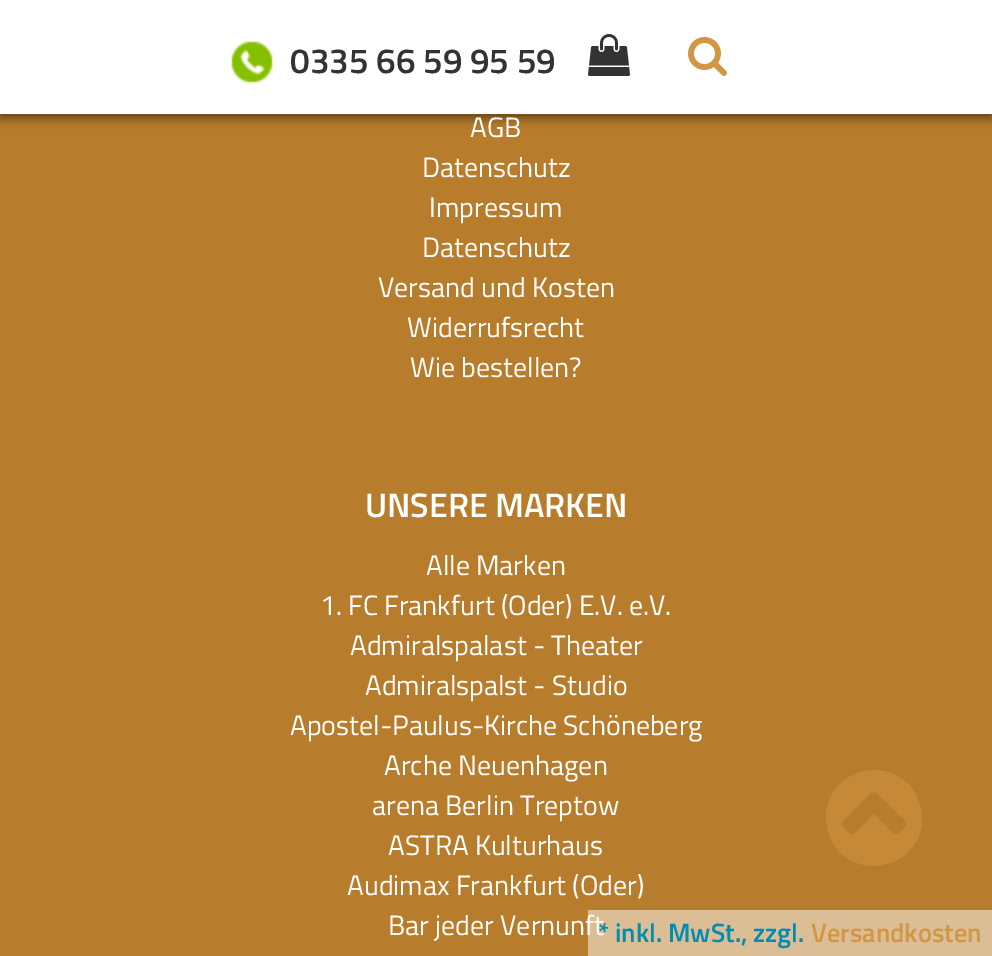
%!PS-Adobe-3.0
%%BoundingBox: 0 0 992 956
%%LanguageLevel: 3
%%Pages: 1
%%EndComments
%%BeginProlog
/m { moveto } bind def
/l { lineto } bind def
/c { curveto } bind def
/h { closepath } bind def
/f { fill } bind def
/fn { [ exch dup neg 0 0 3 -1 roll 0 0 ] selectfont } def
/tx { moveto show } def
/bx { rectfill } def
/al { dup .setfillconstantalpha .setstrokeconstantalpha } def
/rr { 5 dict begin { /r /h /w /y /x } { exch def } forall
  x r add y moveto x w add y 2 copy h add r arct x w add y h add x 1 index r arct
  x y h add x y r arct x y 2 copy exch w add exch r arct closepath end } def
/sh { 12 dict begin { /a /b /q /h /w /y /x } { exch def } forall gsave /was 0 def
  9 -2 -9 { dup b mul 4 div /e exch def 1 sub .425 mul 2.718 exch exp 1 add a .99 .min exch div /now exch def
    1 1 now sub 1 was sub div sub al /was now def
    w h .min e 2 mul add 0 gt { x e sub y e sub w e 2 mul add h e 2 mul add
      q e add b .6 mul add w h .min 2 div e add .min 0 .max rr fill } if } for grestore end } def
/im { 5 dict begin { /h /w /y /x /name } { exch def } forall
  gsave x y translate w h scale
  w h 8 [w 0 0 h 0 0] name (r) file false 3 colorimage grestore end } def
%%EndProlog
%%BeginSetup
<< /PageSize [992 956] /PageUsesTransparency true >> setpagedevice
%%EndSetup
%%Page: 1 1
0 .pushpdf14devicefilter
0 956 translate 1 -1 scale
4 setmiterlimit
0.718 0.486 0.173 setrgbcolor
0 0 992 956 bx
0 setgray
0 4 992 114 0 5 0.5 sh
1 setgray
0 0 992 114 bx
(image0.raw) 231 41 42 42 im
/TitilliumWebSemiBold-SemiBold 35 fn
0.2 setgray
(0335 66 59 95 59) 290 73 tx
(image1.raw) 588 34 42 42 im
(image2.raw) 688 37 39 39 im
/TitilliumWeb-Regular 28 fn
1 setgray
(AGB) 470 137 tx
(Datenschutz) 422 177 tx
(Impressum) 429 217 tx
(Datenschutz) 422 257 tx
(Versand und Kosten) 378 297 tx
(Widerrufsrecht) 407 337 tx
(Wie bestellen?) 410 377 tx
/TitilliumWebSemiBold-SemiBold 34 fn
(UNSERE MARKEN) 365 517 tx
/TitilliumWeb-Regular 28 fn
(Alle Marken) 426 575 tx
(1. FC Frankfurt \(Oder\) E.V. e.V.) 320 615 tx
(Admiralspalast - Theater) 350 655 tx
(Admiralspalst - Studio) 365 695 tx
(Apostel-Paulus-Kirche Schöneberg) 290 735 tx
(Arche Neuenhagen) 384 775 tx
(arena Berlin Treptow) 372 815 tx
(ASTRA Kulturhaus) 388 855 tx
(Audimax Frankfurt \(Oder\)) 347 895 tx
(Bar jeder Vernunft) 388 935 tx
0.773 0.537 0.22 setrgbcolor
899 833 m 910 822 908 824 896 812 c 882 798 l 874 790 874 790 866 798 c 843 821 l 840 824 843 827 845 829 c 851 835 851 837 858 830 c 874 814 l 887 827 l 889 829 895 837 899 833 c h 916 794 m 920 802 922 812 922 821 c 919 868 856 883 832 842 c 828 834 826 824 826 815 c 829 768 892 753 916 794 c h f
0.5 al
1 setgray
588 910 404 46 bx
/TitilliumWebSemiBold-SemiBold 26.5 fn
1 al
0 0.553 0.69 setrgbcolor
(* inkl. MwSt., zzgl.) 598 942 tx
0.824 0.588 0.267 setrgbcolor
(Versandkosten) 811 942 tx
.poppdf14devicefilter showpage
%%EOF
